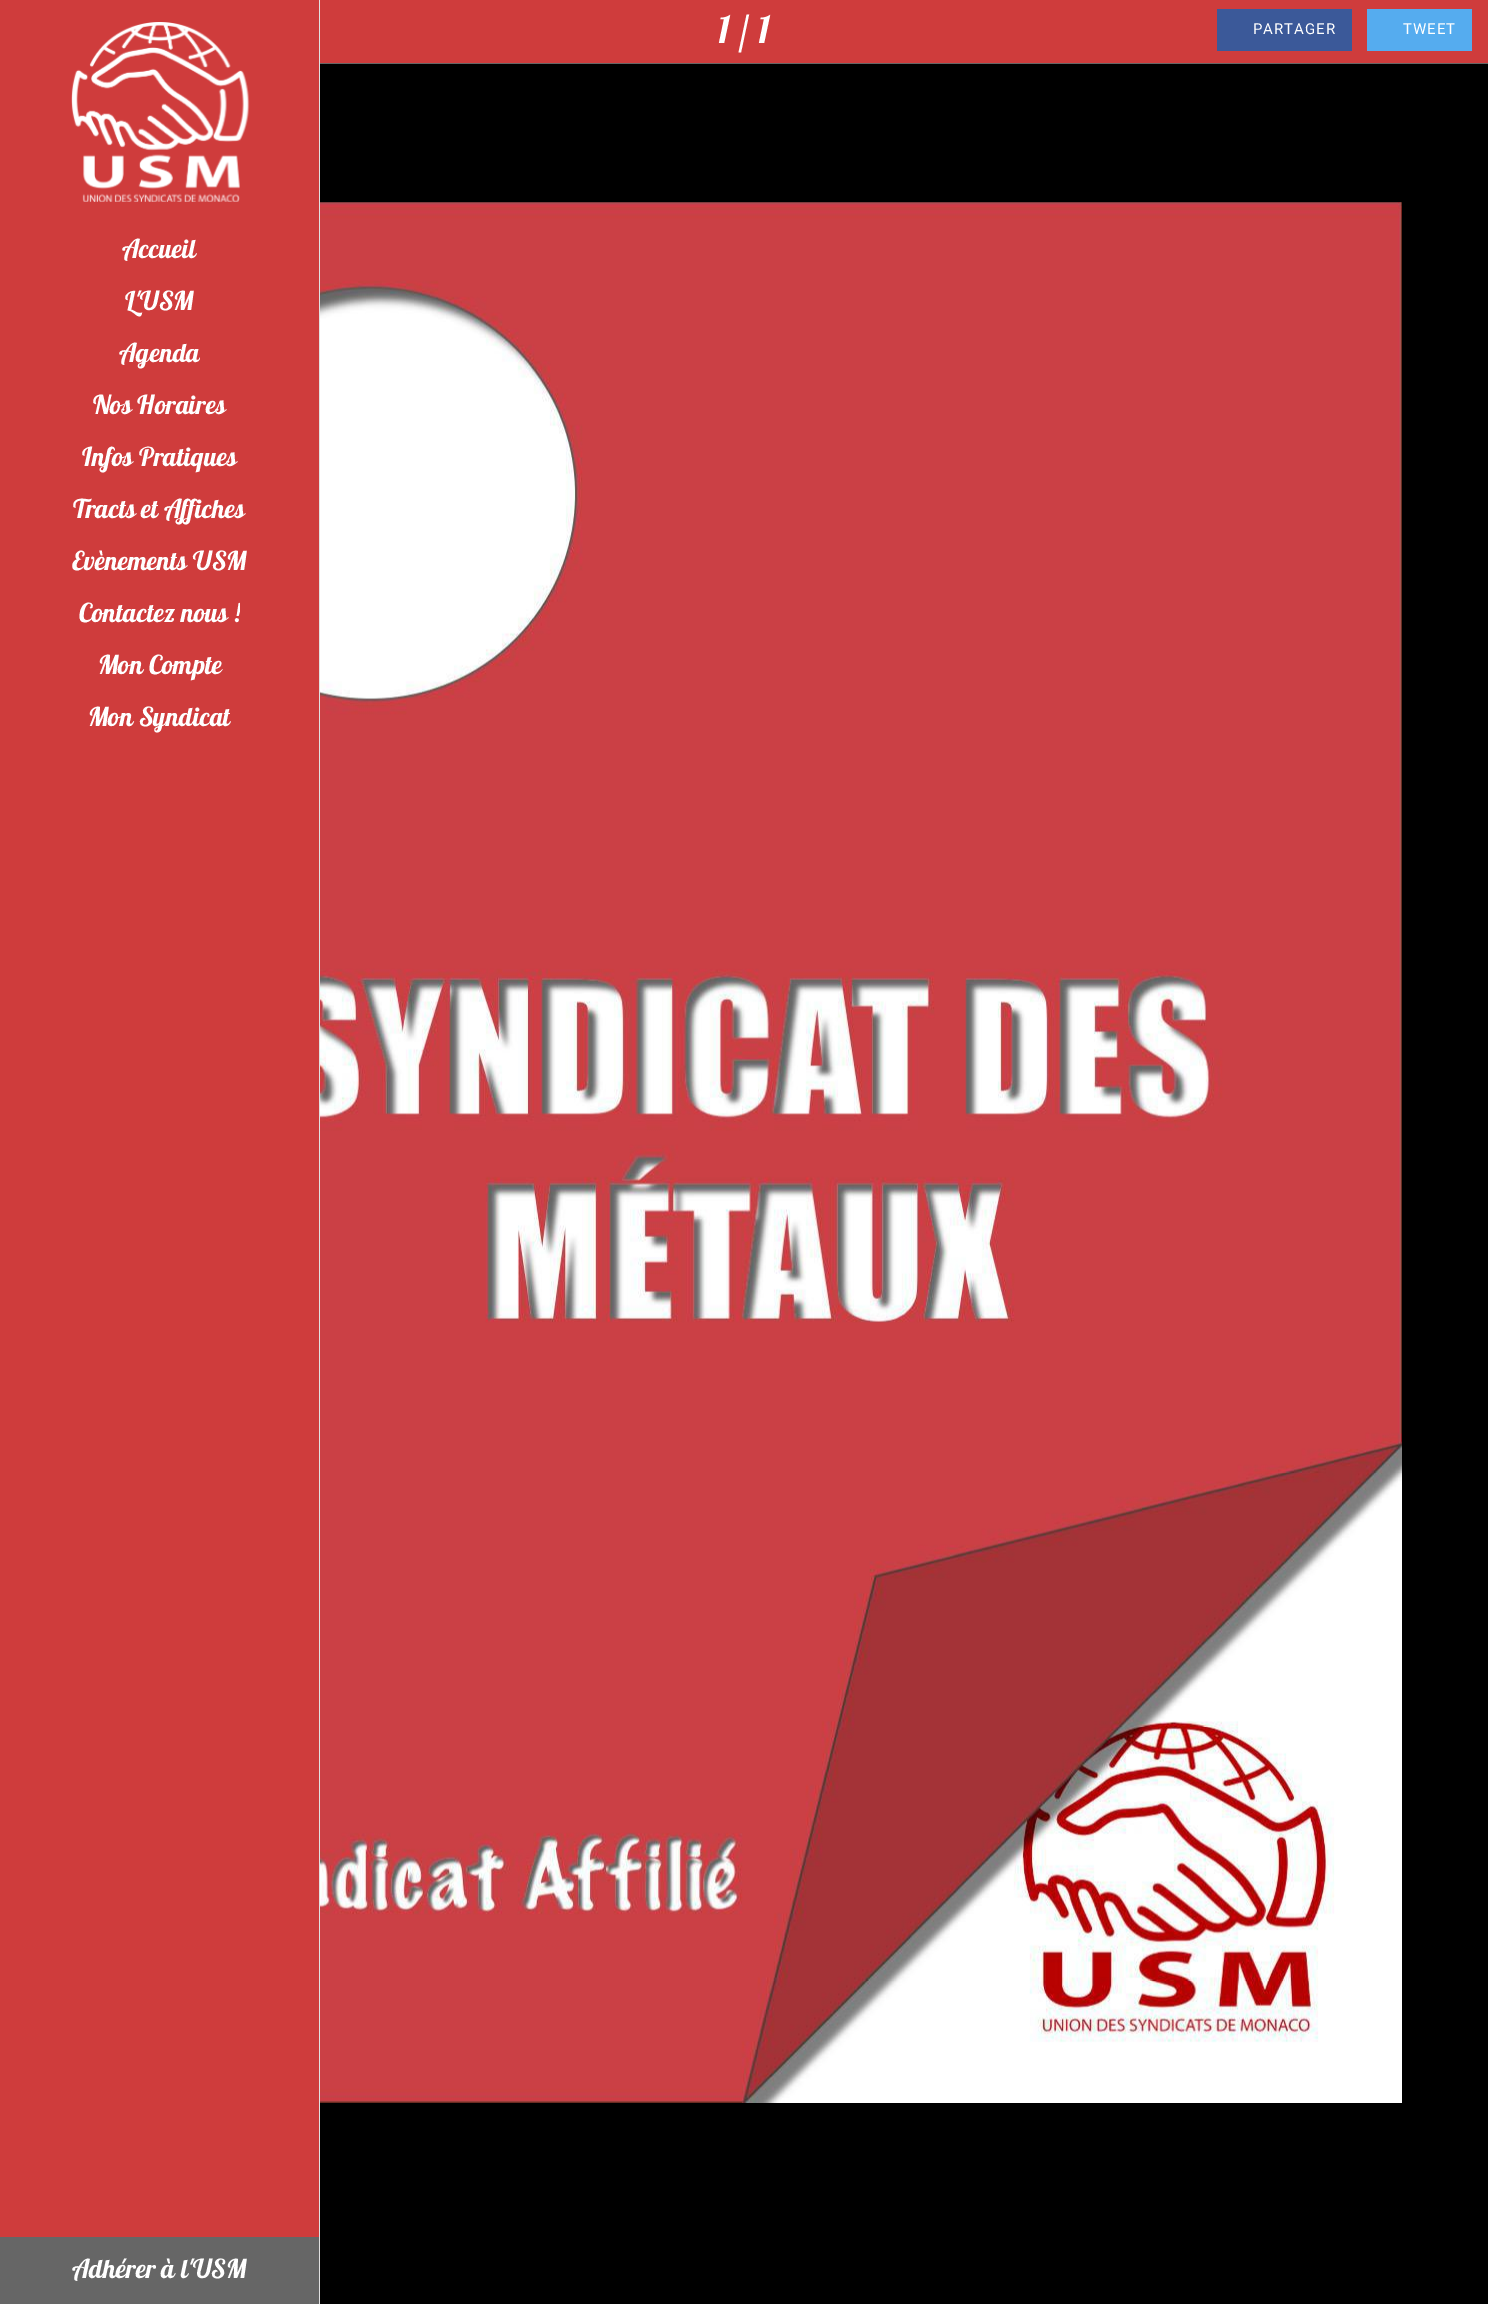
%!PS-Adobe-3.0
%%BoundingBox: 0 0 1488 2304
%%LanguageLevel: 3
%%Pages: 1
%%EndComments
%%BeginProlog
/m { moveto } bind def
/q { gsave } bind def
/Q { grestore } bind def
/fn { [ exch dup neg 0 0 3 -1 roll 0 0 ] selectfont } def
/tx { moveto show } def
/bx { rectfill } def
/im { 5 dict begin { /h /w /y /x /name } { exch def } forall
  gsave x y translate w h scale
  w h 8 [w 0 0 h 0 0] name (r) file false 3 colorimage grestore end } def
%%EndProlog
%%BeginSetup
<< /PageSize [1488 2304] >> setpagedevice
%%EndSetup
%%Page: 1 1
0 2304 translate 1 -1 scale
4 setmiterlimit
0 setgray
0 0 1488 2304 bx
0.812 0.235 0.235 setrgbcolor
320 0 1168 63 bx
0.4 setgray
320 63 1168 1 bx
/Pattaya-Regular 38 fn
1 setgray
(1 / 1) 718 43 tx
0.231 0.349 0.6 setrgbcolor
1217 9 135 42 bx
/Roboto-Regular 15 fn
1 setgray
1253 34 m 1 0 (PARTAGER) ashow
0.333 0.675 0.937 setrgbcolor
1367 9 105 42 bx
1 setgray
1403 34 m 1 0 (TWEET) ashow
(image0.raw) 320 202 1082 1901 im
0.878 setgray
319 0 1 2304 bx
0.812 0.235 0.235 setrgbcolor
0 0 319 2237 bx
(image1.raw) 71 22 179 180 im
/Pattaya-Regular 26 fn
1 setgray
(Accueil) 122 258 tx
(L'USM) 125 310 tx
q
119 328 81 52 rectclip
(Agenda) 119 362 tx
Q
(Nos Horaires) 93 414 tx
(Infos Pratiques) 82 466 tx
(Tracts et Affiches) 73 518 tx
(Evènements USM) 72 570 tx
q
79 588 161 52 rectclip
(Contactez nous !) 79 622 tx
Q
(Mon Compte) 98 674 tx
(Mon Syndicat) 88 726 tx
0.4 setgray
0 2237 319 67 bx
1 setgray
(Adhérer à l'USM) 72 2278 tx
showpage
%%EOF
